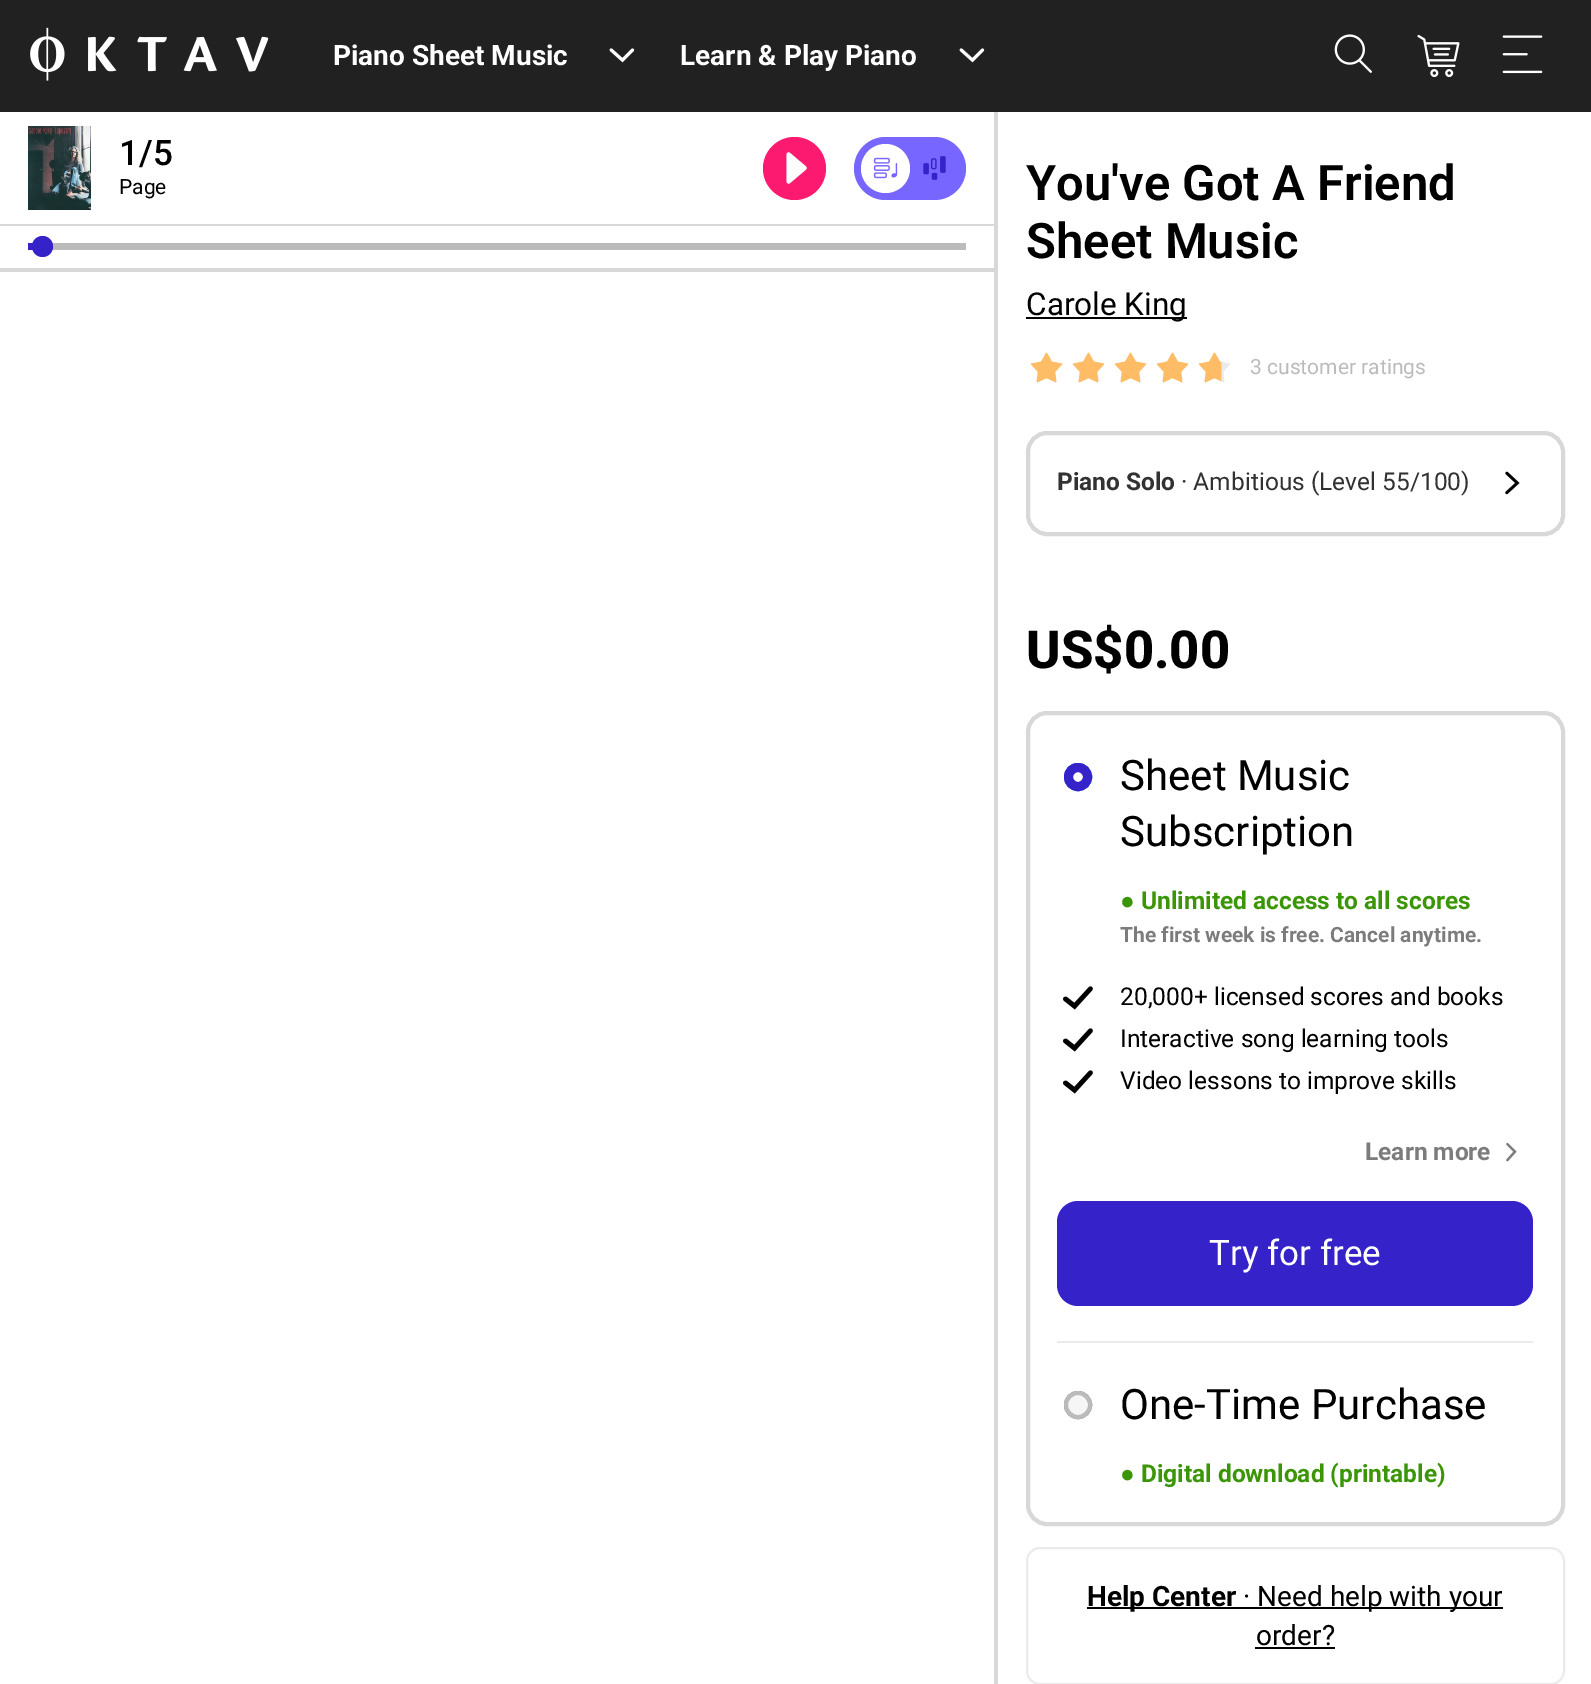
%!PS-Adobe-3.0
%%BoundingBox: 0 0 1591 1684
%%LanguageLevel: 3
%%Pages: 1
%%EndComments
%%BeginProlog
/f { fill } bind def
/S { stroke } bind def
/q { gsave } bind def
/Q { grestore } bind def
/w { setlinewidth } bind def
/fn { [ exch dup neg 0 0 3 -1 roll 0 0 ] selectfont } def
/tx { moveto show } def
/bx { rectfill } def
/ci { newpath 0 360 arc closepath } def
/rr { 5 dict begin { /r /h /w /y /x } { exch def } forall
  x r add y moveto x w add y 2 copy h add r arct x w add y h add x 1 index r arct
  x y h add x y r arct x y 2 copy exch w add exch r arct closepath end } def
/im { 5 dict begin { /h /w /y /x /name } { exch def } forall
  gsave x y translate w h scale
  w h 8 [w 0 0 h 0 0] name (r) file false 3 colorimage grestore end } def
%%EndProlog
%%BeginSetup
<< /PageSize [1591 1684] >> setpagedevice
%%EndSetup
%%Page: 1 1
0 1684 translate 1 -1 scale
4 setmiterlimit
1 setgray
0 0 1591 1684 bx
0.129 setgray
0 0 1591 112 bx
(image0.raw) 30 27 239 54 im
/Roboto-Bold 28 fn
1 setgray
(Piano Sheet Music) 333 65 tx
(image1.raw) 609 48 26 15 im
(Learn & Play Piano) 680 65 tx
(image1.raw) 959 48 26 15 im
(image2.raw) 1334 34 38 39 im
(image3.raw) 1417 34 43 44 im
(image4.raw) 1502 35 41 39 im
0.847 setgray
994 112 4 1572 bx
0 268 994 4 bx
(image5.raw) 28 126 63 84 im
/Roboto-Medium 35 fn
0 setgray
(1/5) 119 165 tx
/Roboto-Regular 21 fn
(Page) 119 194 tx
0.988 0.102 0.443 setrgbcolor
794.5 168.5 31.5 ci f
(image6.raw) 786 152 21 32 im
0.467 0.4 1 setrgbcolor
854 137 112 63 31.5 rr f
1 setgray
885.5 168.5 24.5 ci f
(image7.raw) 873 157 25 22 im
(image8.raw) 923 156 23 24 im
0.847 setgray
0 224 994 2 bx
0.208 0.137 0.788 setrgbcolor
28 243 7 7 bx
0.733 setgray
52 243 914 7 bx
0.208 0.137 0.788 setrgbcolor
42.5 246.5 10.5 ci f
/Roboto-SemiBold 49 fn
0 setgray
(You've Got A Friend) 1026 200 tx
(Sheet Music) 1026 258 tx
1026 317 161 2 bx
/Roboto-Regular 31.5 fn
(Carole King) 1026 315 tx
(image9.raw) 1030 352 33 31 im
(image9.raw) 1072 352 33 31 im
(image9.raw) 1114 352 33 31 im
(image9.raw) 1156 352 33 31 im
(image10.raw) 1198 352 32 31 im
/Roboto-Regular 21 fn
0.733 setgray
(3 customer ratings) 1250 374 tx
0.847 setgray
4 w
1028 433 535 101 19 rr S
/Roboto-Bold 24.5 fn
0.196 setgray
(Piano Solo) 1057 490 tx
/Roboto-Regular 24.5 fn
(· Ambitious \(Level 55/100\)) 1181 490 tx
(image11.raw) 1505 471 15 24 im
/Roboto-ExtraBold 52.5 fn
0 setgray
(US$0.00) 1026 668 tx
0.847 setgray
1028 713 535 811 19 rr S
0 0.459 1 setrgbcolor
2 w
1078 777 13 ci S
1 setgray
1078 777 9.5 ci q f Q
0.208 0.137 0.788 setrgbcolor
9 w
S
/Roboto-Regular 42 fn
0 setgray
(Sheet Music) 1120 790 tx
(Subscription) 1120 846 tx
/LiberationSans-Bold 24.5 fn
0.231 0.588 0.027 setrgbcolor
(●) 1120 909 tx
/Roboto-Bold 24.5 fn
(Unlimited access to all scores) 1141 909 tx
/Roboto-Bold 21 fn
0.486 setgray
(The first week is free. Cancel anytime.) 1120 942 tx
(image12.raw) 1063 986 30 24 im
/Roboto-Regular 24.5 fn
0 setgray
(20,000+ licensed scores and books) 1120 1005 tx
(image12.raw) 1063 1028 30 24 im
(Interactive song learning tools) 1120 1047 tx
(image12.raw) 1063 1070 30 24 im
(Video lessons to improve skills) 1120 1089 tx
/Roboto-Bold 24.5 fn
0.486 setgray
(Learn more) 1365 1160 tx
(image13.raw) 1506 1142 11 20 im
0.208 0.137 0.788 setrgbcolor
1057 1201 476 105 21 rr f
/Roboto-Regular 35 fn
1 setgray
(Try for free) 1209 1265 tx
0.922 setgray
1057 1341 476 2 bx
0.463 setgray
2 w
1078 1405 13 ci S
0.965 setgray
1078 1405 12 ci q f Q
0.733 setgray
4 w
S
/Roboto-Regular 42 fn
0 setgray
(One-Time Purchase) 1120 1419 tx
/LiberationSans-Bold 24.5 fn
0.231 0.588 0.027 setrgbcolor
(●) 1120 1482 tx
/Roboto-Bold 24.5 fn
(Digital download \(printable\)) 1141 1482 tx
0.922 setgray
2 w
1027 1548 537 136 13 rr S
0 setgray
1087 1607 416 2 bx
/Roboto-Bold 28 fn
(Help Center) 1087 1606 tx
/Roboto-Regular 28 fn
(· Need help with your) 1243 1606 tx
(order?) 1256 1645 tx
1255 1647 80 2 bx
showpage
%%EOF
